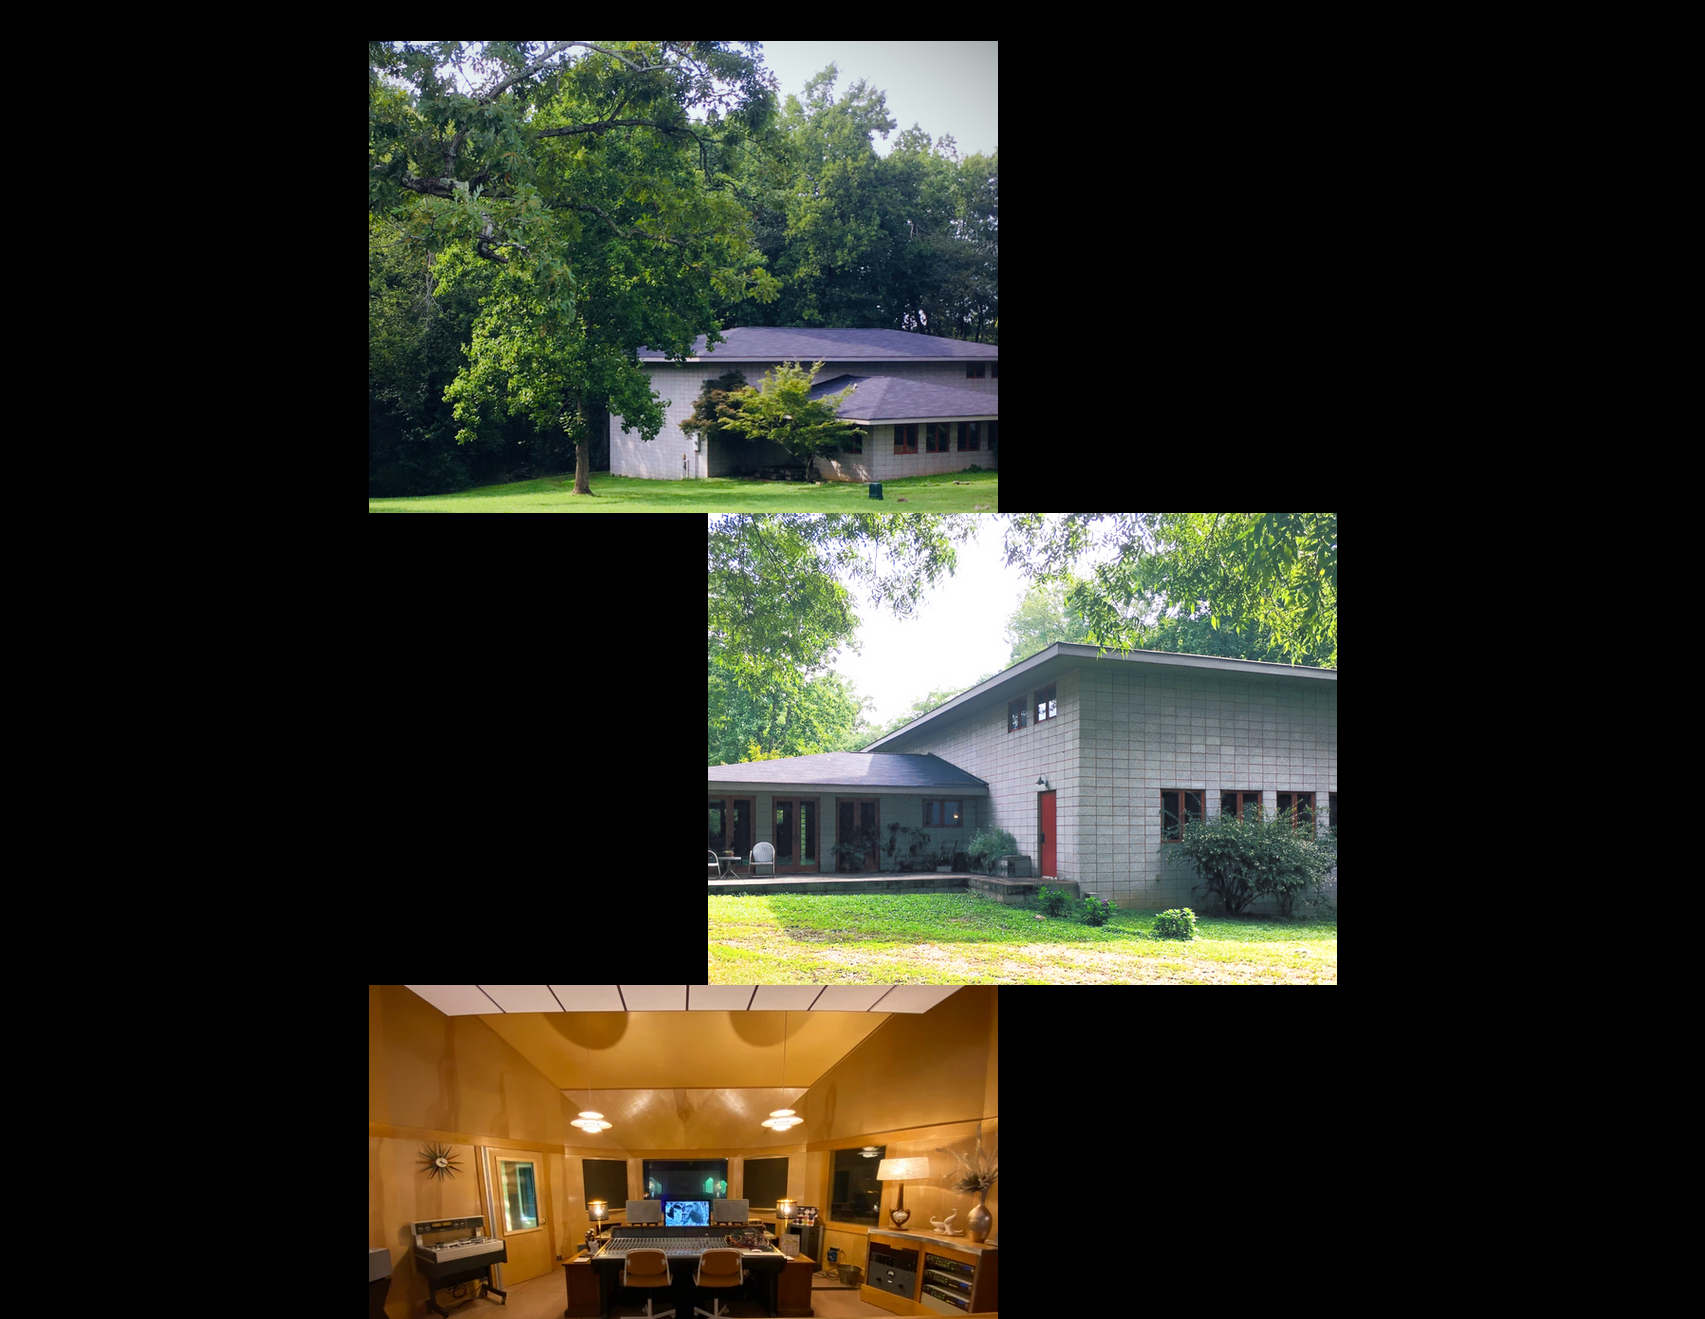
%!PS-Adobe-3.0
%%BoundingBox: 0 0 1705 1319
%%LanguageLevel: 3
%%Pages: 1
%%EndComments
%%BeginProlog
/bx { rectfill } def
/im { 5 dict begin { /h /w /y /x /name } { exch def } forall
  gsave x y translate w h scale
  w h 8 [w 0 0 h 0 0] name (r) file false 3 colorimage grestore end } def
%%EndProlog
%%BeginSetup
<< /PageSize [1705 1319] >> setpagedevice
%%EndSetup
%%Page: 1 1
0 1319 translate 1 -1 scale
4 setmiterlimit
0 setgray
0 0 1705 1319 bx
(image0.raw) 369 41 629 472 im
(image1.raw) 708 513 629 472 im
(image2.raw) 369 985 629 334 im
showpage
%%EOF
